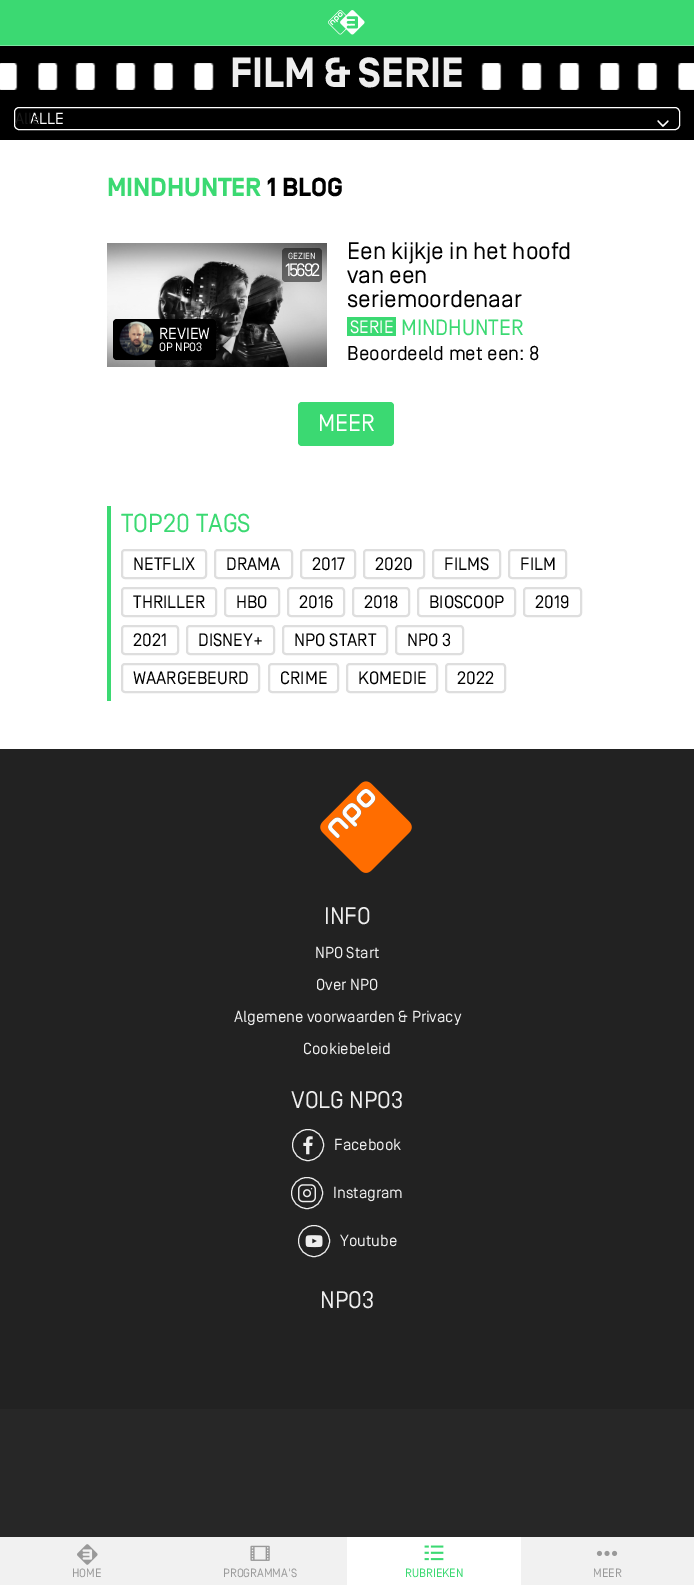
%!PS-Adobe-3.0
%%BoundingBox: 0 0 694 1585
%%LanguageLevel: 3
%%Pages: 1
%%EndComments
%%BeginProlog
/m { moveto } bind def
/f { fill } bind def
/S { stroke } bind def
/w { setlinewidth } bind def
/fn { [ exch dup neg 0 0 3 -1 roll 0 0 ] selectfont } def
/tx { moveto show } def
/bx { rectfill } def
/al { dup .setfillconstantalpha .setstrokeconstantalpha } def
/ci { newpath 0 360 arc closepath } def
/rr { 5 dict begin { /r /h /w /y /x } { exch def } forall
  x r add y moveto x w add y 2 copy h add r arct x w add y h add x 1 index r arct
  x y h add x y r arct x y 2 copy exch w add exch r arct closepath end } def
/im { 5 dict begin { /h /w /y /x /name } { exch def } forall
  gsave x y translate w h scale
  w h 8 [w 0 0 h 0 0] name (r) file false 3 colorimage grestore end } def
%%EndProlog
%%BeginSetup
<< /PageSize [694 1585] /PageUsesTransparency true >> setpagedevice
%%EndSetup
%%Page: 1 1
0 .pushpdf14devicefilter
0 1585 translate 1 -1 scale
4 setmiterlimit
0.153 setgray
0 0 694 1585 bx
0.231 0.851 0.447 setrgbcolor
0 0 694 45 bx
(image0.raw) 328 10 37 25 im
0.482 0.898 0.627 setrgbcolor
0 45 694 1 bx
0 setgray
0 46 694 94 bx
(image1.raw) 0 63 214 27 im
/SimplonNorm-Bold 42 fn
0.933 setgray
(FILM & SERIE) 230 87 tx
(image2.raw) 481 63 213 27 im
1 setgray
14.5 107.5 665 22 4.5 rr S
/SimplonNorm-Regular 16 fn
(ALLE) 30 124 tx
0.098 setgray
(Alle) 15 124 tx
(image3.raw) 657 120 12 7 im
1 setgray
0 140 694 609 bx
/SimplonNorm-Bold 26 fn
0.231 0.851 0.447 setrgbcolor
(MINDHUNTER) 107 196 tx
0 setgray
(1 BLOG) 267 196 tx
(image4.raw) 107 243 220 124 im
0.5 al
282 248 40 34 4 rr f
/SimplonNorm-Regular 9 fn
1 al
1 setgray
(GEZIEN) 288 259 tx
/SimplonNorm-Regular 18 fn
285 276 m -2 0 (15692) ashow
0 setgray
113 319 103 41 4 rr f
(image5.raw) 119 321 35 35 im
/SimplonNorm-Regular 16 fn
1 setgray
(REVIEW) 159 339 tx
/SimplonNorm-Regular 12 fn
(OP NPO3) 159 351 tx
/SimplonNorm-Regular 24 fn
0 setgray
(Een kijkje in het hoofd) 347 259 tx
(van een) 347 283 tx
(seriemoordenaar) 347 307 tx
0.231 0.851 0.447 setrgbcolor
347 317 49 19 bx
/SimplonNorm-Regular 18 fn
1 setgray
(SERIE) 350 333 tx
/SimplonNorm-Regular 22 fn
0.231 0.851 0.447 setrgbcolor
(MINDHUNTER) 401 335 tx
/SimplonNorm-Regular 20 fn
0 setgray
(Beoordeeld met een: 8) 347 360 tx
0.231 0.851 0.447 setrgbcolor
298 402 96 44 4 rr f
/SimplonNorm-Regular 24 fn
1 setgray
(MEER) 318 431 tx
0.231 0.851 0.447 setrgbcolor
107 506 4 195 bx
/SimplonNorm-Regular 26 fn
(TOP20 TAGS) 121 532 tx
0.871 setgray
2 w
122 550 84 28 3 rr S
/SimplonNorm-Regular 18 fn
0 setgray
(NETFLIX) 133 570 tx
0.871 setgray
215 550 77 28 3 rr S
0 setgray
(DRAMA) 226 570 tx
0.871 setgray
301 550 54 28 3 rr S
0 setgray
(2017) 312 570 tx
0.871 setgray
364 550 60 28 3 rr S
0 setgray
(2020) 375 570 tx
0.871 setgray
433 550 67 28 3 rr S
0 setgray
(FILMS) 444 570 tx
0.871 setgray
509 550 57 28 3 rr S
0 setgray
(FILM) 520 570 tx
0.871 setgray
122 588 94 28 3 rr S
0 setgray
(THRILLER) 133 608 tx
0.871 setgray
225 588 54 28 3 rr S
0 setgray
(HBO) 236 608 tx
0.871 setgray
288 588 56 28 3 rr S
0 setgray
(2016) 299 608 tx
0.871 setgray
353 588 56 28 3 rr S
0 setgray
(2018) 364 608 tx
0.871 setgray
418 588 97 28 3 rr S
0 setgray
(BIOSCOOP) 429 608 tx
0.871 setgray
524 588 57 28 3 rr S
0 setgray
(2019) 535 608 tx
0.871 setgray
122 626 56 28 3 rr S
0 setgray
(2021) 133 646 tx
0.871 setgray
187 626 87 28 3 rr S
0 setgray
(DISNEY+) 198 646 tx
0.871 setgray
283 626 104 28 3 rr S
0 setgray
(NPO START) 294 646 tx
0.871 setgray
396 626 67 28 3 rr S
0 setgray
(NPO 3) 407 646 tx
0.871 setgray
122 664 137 28 3 rr S
0 setgray
(WAARGEBEURD) 133 684 tx
0.871 setgray
269 664 69 28 3 rr S
0 setgray
(CRIME) 280 684 tx
0.871 setgray
347 664 90 28 3 rr S
0 setgray
(KOMEDIE) 358 684 tx
0.871 setgray
446 664 59 28 3 rr S
0 setgray
(2022) 457 684 tx
0.133 setgray
0 749 694 660 bx
(image6.raw) 320 781 92 92 im
/SimplonNorm-Regular 24 fn
0.933 setgray
(INFO) 324 924 tx
/SimplonNorm-Regular 16 fn
(NPO Start) 315 958 tx
(Over NPO) 316 990 tx
(Algemene voorwaarden & Privacy) 234 1022 tx
(Cookiebeleid) 303 1054 tx
/SimplonNorm-Regular 24 fn
(VOLG NPO3) 291 1108 tx
1 w
308 1145 15.5 ci S
(image7.raw) 303 1136 10 19 im
/SimplonNorm-Regular 16 fn
(Facebook) 334 1150 tx
307 1193 15.5 ci S
(image8.raw) 298 1184 18 19 im
(Instagram) 333 1198 tx
314 1241 15.5 ci S
(image9.raw) 305 1235 18 13 im
(Youtube) 340 1246 tx
/SimplonNorm-Regular 24 fn
(NPO3) 320 1308 tx
0.945 setgray
0 1537 694 48 bx
(image10.raw) 77 1544 21 21 im
/SimplonNorm-Regular 12 fn
0.6 setgray
(HOME) 72 1577 tx
(image11.raw) 250 1545 20 16 im
(PROGRAMMA'S) 223 1577 tx
1 setgray
347 1537 174 48 bx
(image12.raw) 424 1545 20 16 im
0.231 0.851 0.447 setrgbcolor
(RUBRIEKEN) 405 1577 tx
(image13.raw) 596 1550 22 6 im
0.6 setgray
(MEER) 593 1577 tx
.poppdf14devicefilter showpage
%%EOF
